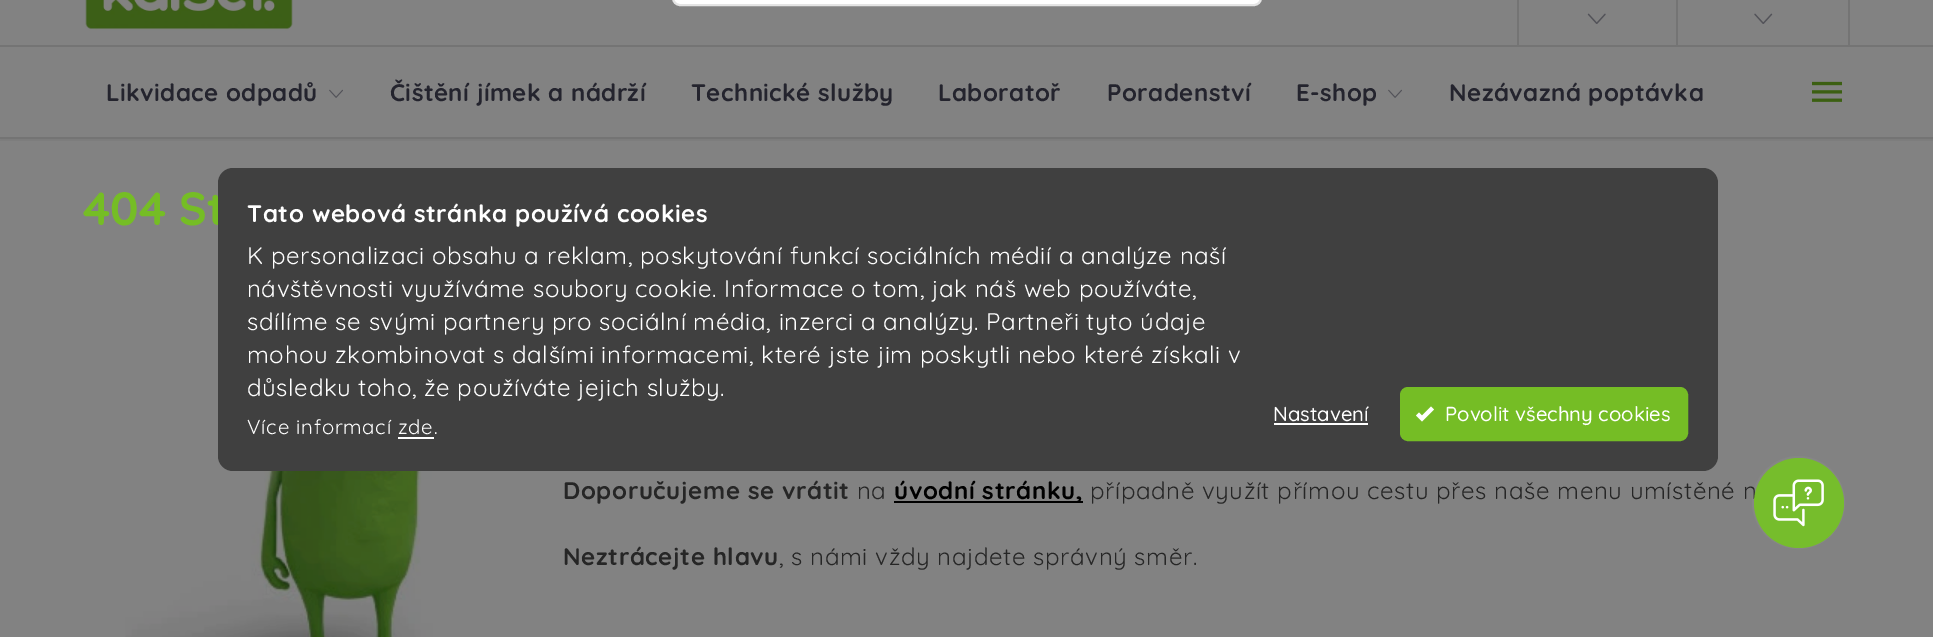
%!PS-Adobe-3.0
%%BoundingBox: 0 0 1933 637
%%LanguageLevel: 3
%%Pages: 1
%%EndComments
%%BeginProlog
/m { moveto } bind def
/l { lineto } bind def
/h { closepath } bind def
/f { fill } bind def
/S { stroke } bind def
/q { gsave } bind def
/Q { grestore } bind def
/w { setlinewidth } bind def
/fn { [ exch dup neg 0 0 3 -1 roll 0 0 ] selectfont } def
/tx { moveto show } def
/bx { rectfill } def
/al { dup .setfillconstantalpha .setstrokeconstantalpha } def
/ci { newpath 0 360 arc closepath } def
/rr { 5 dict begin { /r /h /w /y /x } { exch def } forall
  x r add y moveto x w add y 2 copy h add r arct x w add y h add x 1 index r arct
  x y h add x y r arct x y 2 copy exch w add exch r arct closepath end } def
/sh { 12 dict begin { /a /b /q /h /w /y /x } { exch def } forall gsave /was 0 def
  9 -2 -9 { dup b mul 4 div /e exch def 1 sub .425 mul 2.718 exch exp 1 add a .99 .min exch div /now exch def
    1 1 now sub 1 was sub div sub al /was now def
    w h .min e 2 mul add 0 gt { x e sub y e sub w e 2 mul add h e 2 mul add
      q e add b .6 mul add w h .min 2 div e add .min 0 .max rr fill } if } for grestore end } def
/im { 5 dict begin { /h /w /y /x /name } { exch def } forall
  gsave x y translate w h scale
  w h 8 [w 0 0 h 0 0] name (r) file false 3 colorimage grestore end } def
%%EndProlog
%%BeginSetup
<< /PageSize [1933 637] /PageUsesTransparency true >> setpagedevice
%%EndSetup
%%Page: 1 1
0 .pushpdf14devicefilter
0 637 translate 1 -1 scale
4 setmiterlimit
1 setgray
0 0 1933 637 bx
0.894 setgray
1517 0 2 45 bx
1848 0 2 45 bx
1676 0 2 45 bx
q
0 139 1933 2 rectclip
0 setgray
0 48 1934 93 0 1.5 0.05 sh
Q
0 45 1933 2 bx
0 137 1933 2 bx
(image0.raw) 85 0 208 31 im
(image1.raw) 1587 13 19 11 im
(image2.raw) 1754 13 19 11 im
(image3.raw) 329 89 14 9 im
(image3.raw) 1388 89 14 9 im
(image4.raw) 1812 81 30 21 im
(image5.raw) 125 263 331 374 im
0 setgray
894 501 189 2 bx
-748 -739 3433 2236 983 120 0.5 sh
1 setgray
673 -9 588 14 7 rr q f Q
0.894 setgray
2 w
S
/Quicksand-Bold 24 fn
0.141 0.141 0.18 setrgbcolor
106 101 m 0.45 0 (Likvidace odpadů) ashow
390 101 m 0.45 0 (Čištění jímek a nádrží) ashow
691 101 m 0.45 0 (Technické služby) ashow
938 101 m 0.45 0 (Laboratoř) ashow
1107 101 m 0.45 0 (Poradenství) ashow
1296 101 m 0.45 0 (E-shop) ashow
1449 101 m 0.45 0 (Nezávazná poptávka) ashow
/Quicksand-Bold 46.5 fn
0.459 0.741 0.145 setrgbcolor
(404 St) 83 225 tx
/Quicksand-Bold 24 fn
0.149 setgray
563 499 m 0.6 0 (Doporučujeme se vrátit) ashow
/Quicksand-Regular 24 fn
857 499 m 0.6 0 (na) ashow
/Quicksand-Bold 24 fn
0 setgray
894 499 m 0.6 0 (úvodní stránku,) ashow
/Quicksand-Regular 24 fn
0.149 setgray
1090 499 m 0.6 0 (případně využít přímou cestu přes naše menu umístěné n) ashow
/Quicksand-Bold 24 fn
563 565 m 0.6 0 (Neztrácejte hlavu) ashow
/Quicksand-Regular 24 fn
779 565 m 0.6 0 (, s námi vždy najdete správný směr.) ashow
0.251 setgray
218 168 1500 303 15 rr f
/Quicksand-Bold 24 fn
1 setgray
247 222 m 0.6 0 (Tato webová stránka používá cookies) ashow
/Quicksand-Regular 24 fn
247 264 m 0.6 0 (K personalizaci obsahu a reklam, poskytování funkcí sociálních médií a analýze naší) ashow
247 297 m 0.6 0 (návštěvnosti využíváme soubory cookie. Informace o tom, jak náš web používáte,) ashow
247 330 m 0.6 0 (sdílíme se svými partnery pro sociální média, inzerci a analýzy. Partneři tyto údaje) ashow
247 363 m 0.6 0 (mohou zkombinovat s dalšími informacemi, které jste jim poskytli nebo které získali v) ashow
247 396 m 0.6 0 (důsledku toho, že používáte jejich služby.) ashow
/Quicksand-Regular 20.25 fn
247 434 m 0.75 0 (Více informací zde.) ashow
398 437 36 2 bx
/Quicksand-Medium 20.25 fn
(Nastavení) 1273 421 tx
1274 423 94 2 bx
0.459 0.741 0.145 setrgbcolor
1401 388 286 52 7 rr q f Q
S
1 setgray
1431 406.5 m 1422 415.5 l 1419 412.5 l 1416 415.5 l 1422 421.5 l 1434 409.5 l h f
(Povolit všechny cookies) 1445 421 tx
0.2 al
0.588 setgray
1798.5 502.5 45.5 ci S
1 al
0.463 0.741 0.173 setrgbcolor
1799 503 45 ci f
(image6.raw) 1773 479 51 48 im
.poppdf14devicefilter showpage
%%EOF
